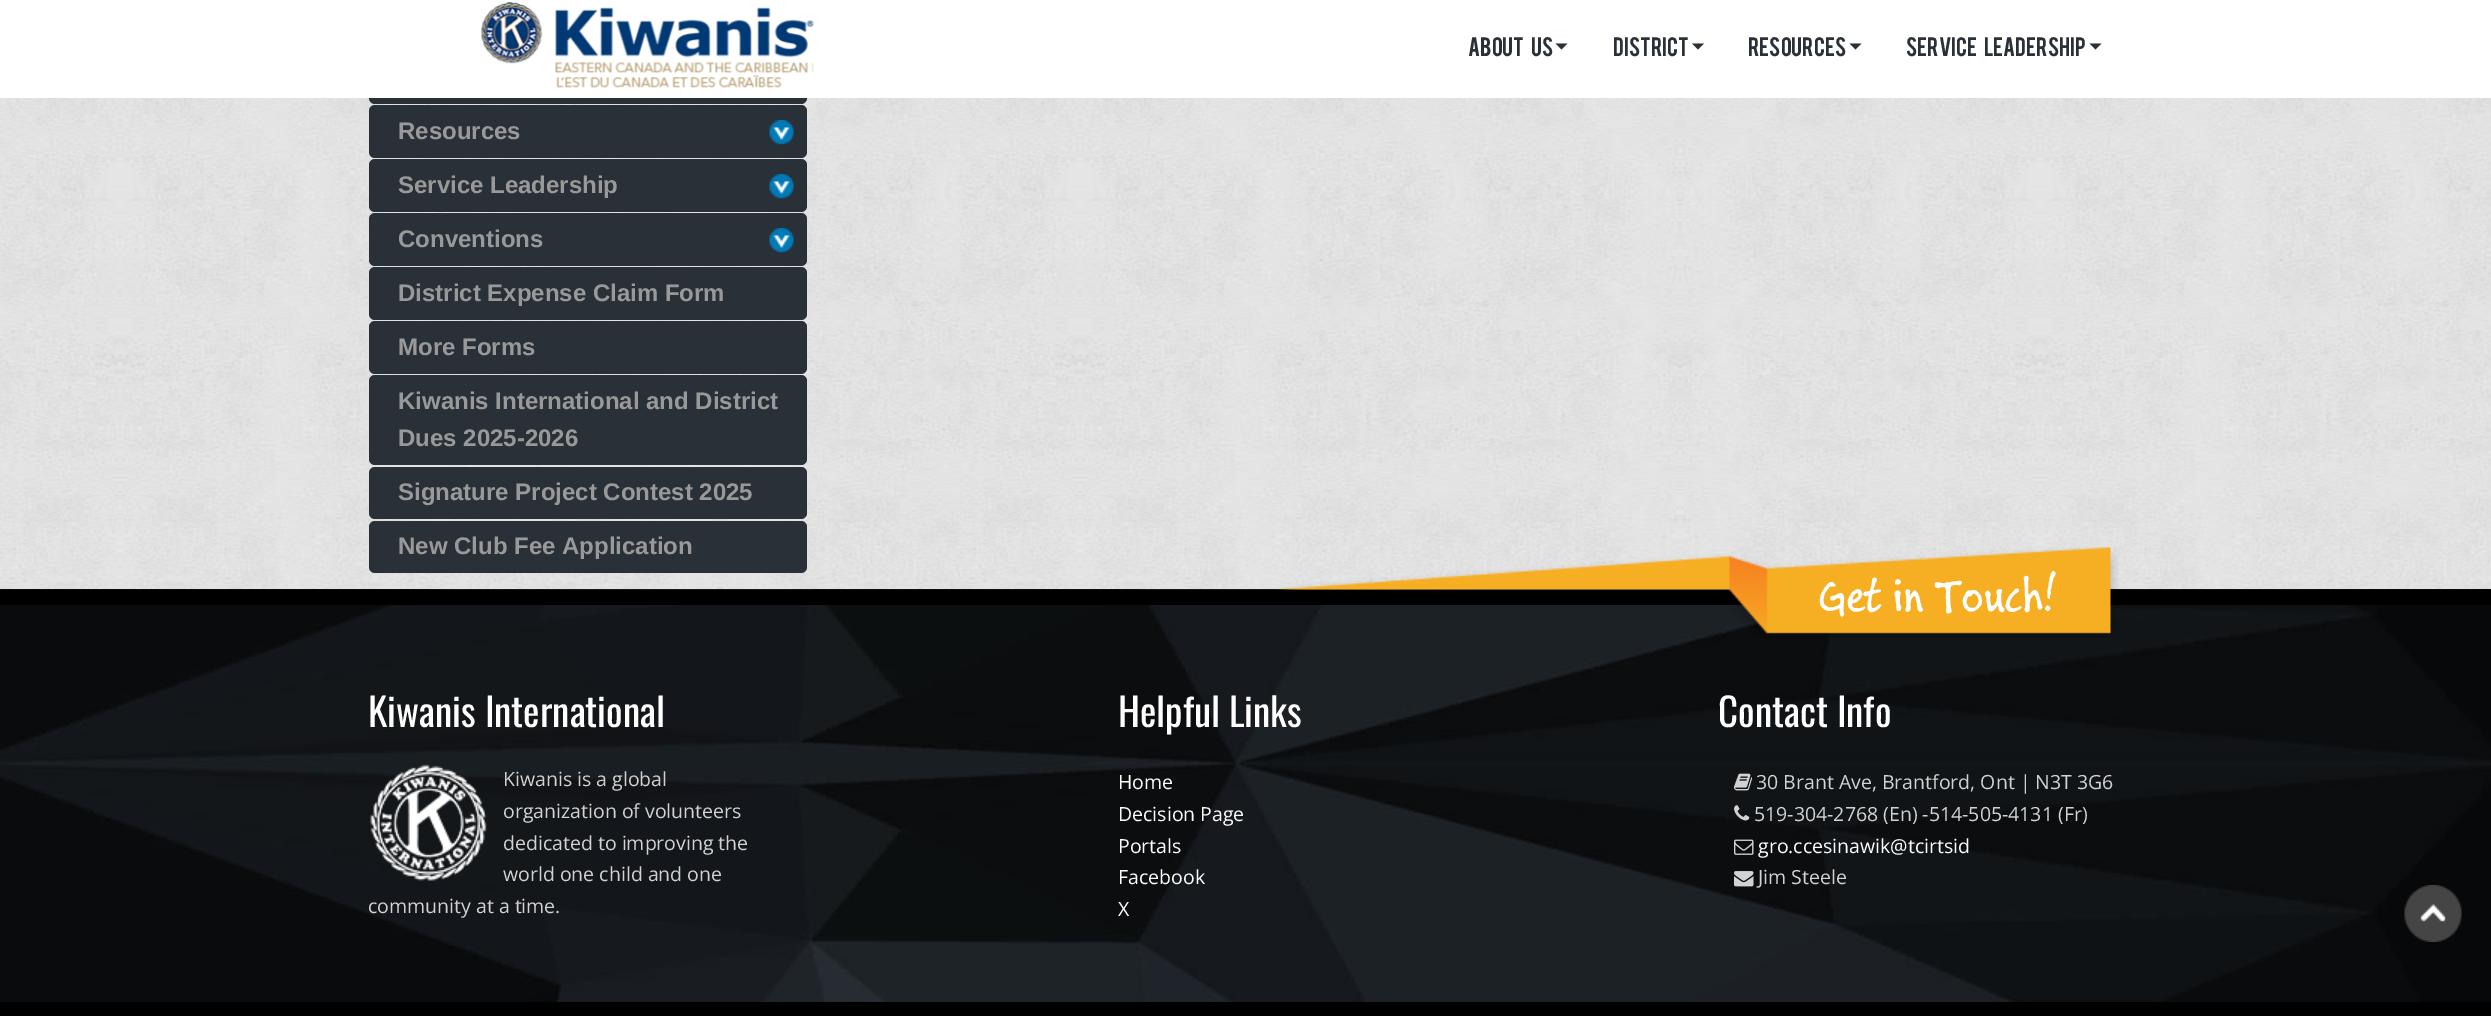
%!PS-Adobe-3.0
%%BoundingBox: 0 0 2491 1016
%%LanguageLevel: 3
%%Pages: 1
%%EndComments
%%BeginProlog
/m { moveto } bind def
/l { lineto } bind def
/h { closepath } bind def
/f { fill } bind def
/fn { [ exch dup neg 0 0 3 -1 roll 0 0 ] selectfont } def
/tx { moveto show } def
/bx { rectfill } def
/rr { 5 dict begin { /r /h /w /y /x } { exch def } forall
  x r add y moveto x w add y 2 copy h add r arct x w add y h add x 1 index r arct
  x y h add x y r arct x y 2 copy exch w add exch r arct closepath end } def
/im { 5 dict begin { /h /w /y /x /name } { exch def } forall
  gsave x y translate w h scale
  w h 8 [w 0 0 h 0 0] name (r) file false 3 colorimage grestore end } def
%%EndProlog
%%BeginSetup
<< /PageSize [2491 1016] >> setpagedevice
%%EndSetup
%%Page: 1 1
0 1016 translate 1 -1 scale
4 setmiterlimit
1 setgray
0 0 2491 1016 bx
(image0.raw) 0 98 2491 491 im
0.161 0.188 0.216 setrgbcolor
369 51 438 53 6 rr f
1 setgray
369 51 438 47 bx
(image1.raw) 481 2 333 86 im
/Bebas-Regular 21 fn
0.161 0.188 0.216 setrgbcolor
1468 56 m 5 0 32 (About Us) widthshow
1555.5 43.5 m 1567.5 43.5 l 1561.5 49.5 l h f
(District) 1613 56 tx
1692 43.5 m 1704 43.5 l 1698 49.5 l h f
(Resources) 1748 56 tx
1849.5 43.5 m 1861.5 43.5 l 1855.5 49.5 l h f
1906 56 m 5 0 32 (Service Leadership) widthshow
2089.5 43.5 m 2101.5 43.5 l 2095.5 49.5 l h f
369 105 438 53 6 rr f
(image2.raw) 769 120 25 25 im
/LiberationSans-Bold 24 fn
0.6 setgray
(Resources) 398 139 tx
0.161 0.188 0.216 setrgbcolor
369 159 438 53 6 rr f
(image2.raw) 769 174 25 25 im
0.6 setgray
(Service Leadership) 398 193 tx
0.161 0.188 0.216 setrgbcolor
369 213 438 53 6 rr f
(image2.raw) 769 228 25 25 im
0.6 setgray
(Conventions) 398 247 tx
0.161 0.188 0.216 setrgbcolor
369 267 438 53 6 rr f
0.6 setgray
(District Expense Claim Form) 398 301 tx
0.161 0.188 0.216 setrgbcolor
369 321 438 53 6 rr f
0.6 setgray
(More Forms) 398 355 tx
0.161 0.188 0.216 setrgbcolor
369 375 438 90 6 rr f
0.6 setgray
(Kiwanis International and District) 398 409 tx
(Dues 2025-2026) 398 446 tx
0.161 0.188 0.216 setrgbcolor
369 467 438 52 6 rr f
0.6 setgray
(Signature Project Contest 2025) 398 500 tx
0.161 0.188 0.216 setrgbcolor
369 521 438 52 6 rr f
0.6 setgray
(New Club Fee Application) 398 554 tx
(image3.raw) 0 589 2491 413 im
0 setgray
0 590 2491 15 bx
0 1002 2491 14 bx
(image4.raw) 1276 547 843 91 im
/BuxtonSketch-Regular 49.5 fn
1 setgray
(Get in Touch!) 1818 611 tx
/Oswald-Regular 39 fn
(Kiwanis International) 368 727 tx
(image5.raw) 370 764 117 117 im
/OpenSans-Regular 19.5 fn
0.824 setgray
(Kiwanis is a global) 503 786 tx
(organization of volunteers) 503 818 tx
(dedicated to improving the) 503 850 tx
(world one child and one) 503 881 tx
(community at a time.) 368 913 tx
/Oswald-Regular 39 fn
1 setgray
(Helpful Links) 1118 727 tx
/OpenSans-Regular 19.5 fn
(Home) 1118 789 tx
(Decision Page) 1118 821 tx
(Portals) 1118 853 tx
(Facebook) 1118 884 tx
(X) 1118 916 tx
/Oswald-Regular 39 fn
(Contact Info) 1718 727 tx
(image6.raw) 1734 773 19 18 im
/OpenSans-Regular 19.5 fn
0.824 setgray
(30 Brant Ave, Brantford, Ont | N3T 3G6) 1756 789 tx
(image7.raw) 1734 805 16 16 im
(519-304-2768 \(En\) -514-505-4131 \(Fr\)) 1754 821 tx
(image8.raw) 1734 839 20 16 im
1 setgray
(gro.ccesinawik@tcirtsid) 1758 853 tx
(image9.raw) 1734 871 20 16 im
0.824 setgray
(Jim Steele) 1758 884 tx
(image10.raw) 2404 885 58 57 im
showpage
%%EOF
